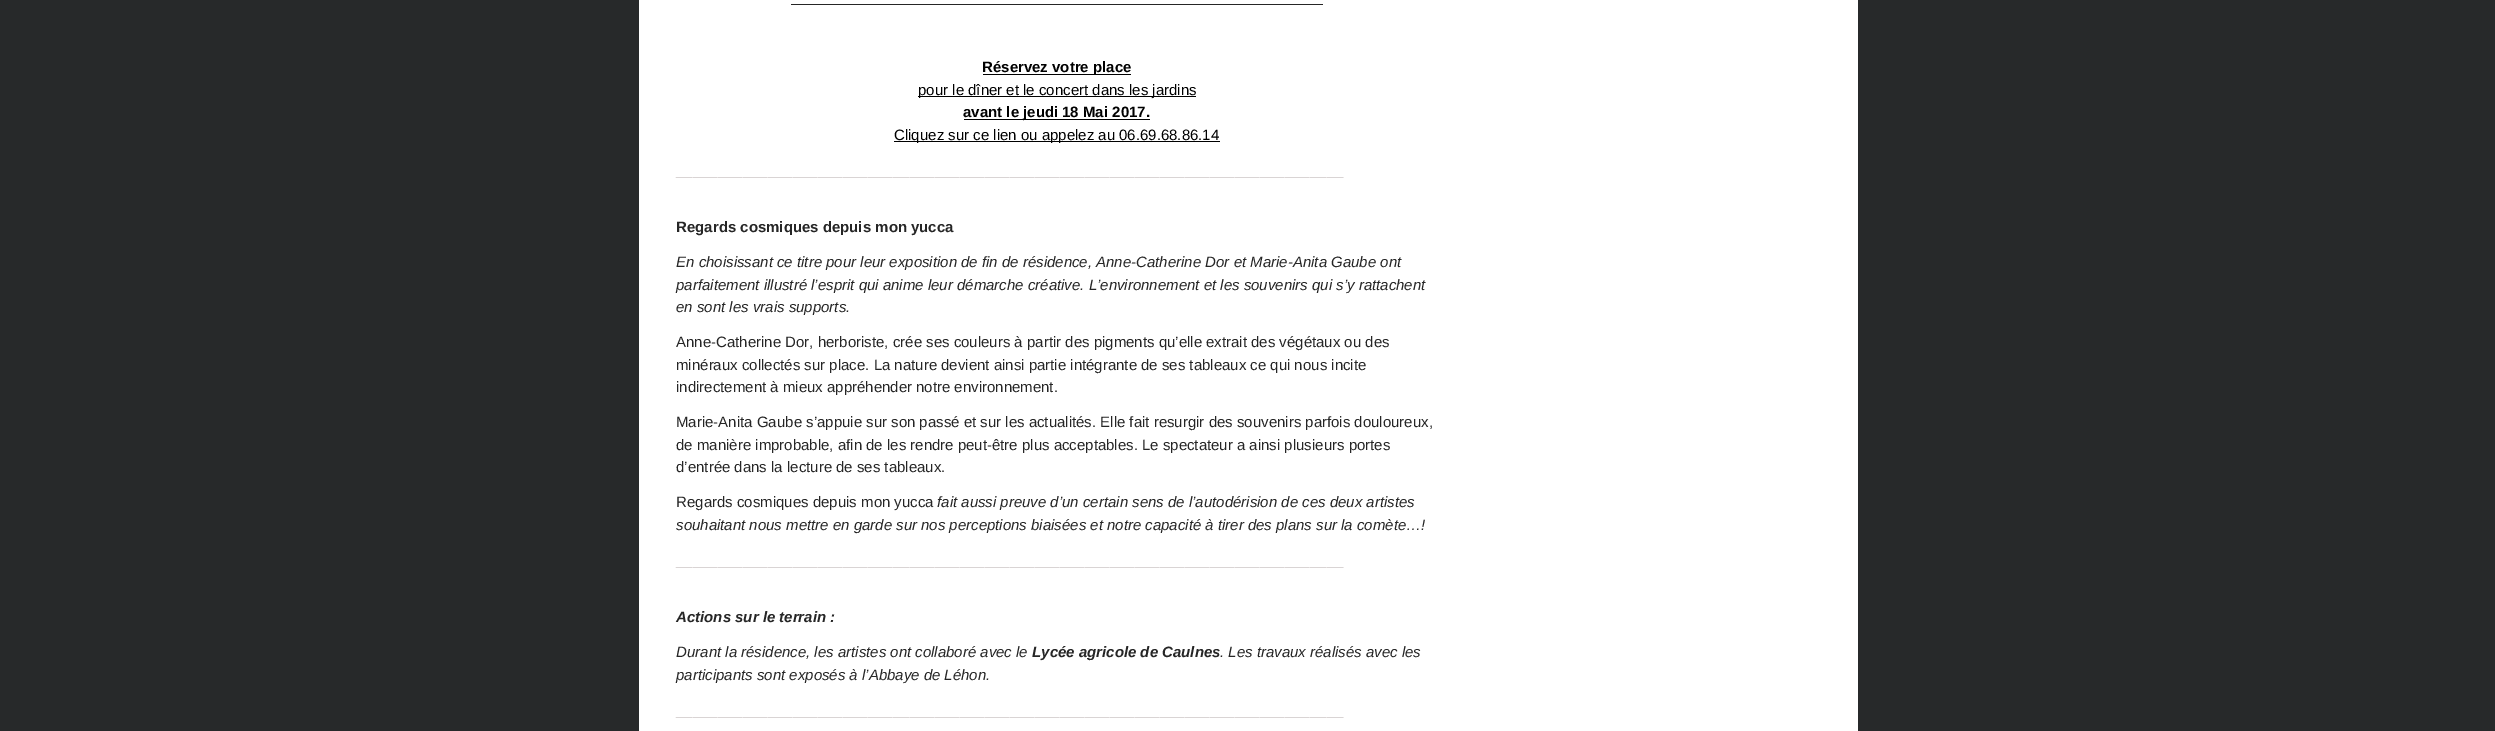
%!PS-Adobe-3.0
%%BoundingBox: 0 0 2495 731
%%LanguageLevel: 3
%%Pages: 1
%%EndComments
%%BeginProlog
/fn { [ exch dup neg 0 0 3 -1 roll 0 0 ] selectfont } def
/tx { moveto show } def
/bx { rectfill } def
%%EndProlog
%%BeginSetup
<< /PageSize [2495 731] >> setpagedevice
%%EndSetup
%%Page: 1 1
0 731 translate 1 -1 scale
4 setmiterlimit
0.153 0.161 0.165 setrgbcolor
0 0 2495 731 bx
1 setgray
639 0 1219 731 bx
0.149 setgray
791 4 532 1 bx
0 setgray
983 74 148 1 bx
/LiberationSans-Bold 15 fn
(Réservez votre place) 982 72 tx
918 96 278 1 bx
/LiberationSans-Regular 15 fn
(pour le dîner et le concert dans les jardins) 918 95 tx
964 119 186 1 bx
/LiberationSans-Bold 15 fn
(avant le jeudi 18 Mai 2017.) 963 117 tx
894 141 326 1 bx
/LiberationSans-Regular 15 fn
(Cliquez sur ce lien ou appelez au 06.69.68.86.14) 894 140 tx
0.851 0.831 0.831 setrgbcolor
(________________________________________________________________________________) 676 175 tx
/LiberationSans-Bold 15 fn
0.149 setgray
(Regards cosmiques depuis mon yucca) 676 232 tx
/LiberationSans-Italic 15 fn
(En choisissant ce titre pour leur exposition de fin de résidence, Anne-Catherine Dor et Marie-Anita Gaube ont) 676 267 tx
(parfaitement illustré l’esprit qui anime leur démarche créative. L’environnement et les souvenirs qui s’y rattachent) 676 290 tx
(en sont les vrais supports.) 676 312 tx
/LiberationSans-Regular 15 fn
(Anne-Catherine Dor, herboriste, crée ses couleurs à partir des pigments qu’elle extrait des végétaux ou des) 676 347 tx
(minéraux collectés sur place. La nature devient ainsi partie intégrante de ses tableaux ce qui nous incite) 676 370 tx
(indirectement à mieux appréhender notre environnement.) 676 392 tx
(Marie-Anita Gaube s’appuie sur son passé et sur les actualités. Elle fait resurgir des souvenirs parfois douloureux,) 676 427 tx
(de manière improbable, afin de les rendre peut-être plus acceptables. Le spectateur a ainsi plusieurs portes) 676 450 tx
(d’entrée dans la lecture de ses tableaux.) 676 472 tx
(Regards cosmiques depuis mon yucca) 676 507 tx
/LiberationSans-Italic 15 fn
(fait aussi preuve d’un certain sens de l’autodérision de ces deux artistes) 937 507 tx
(souhaitant nous mettre en garde sur nos perceptions biaisées et notre capacité à tirer des plans sur la comète…!) 676 530 tx
/LiberationSans-Regular 15 fn
0.851 0.831 0.831 setrgbcolor
(________________________________________________________________________________) 676 565 tx
/LiberationSans-BoldItalic 15 fn
0.149 setgray
(Actions sur le terrain :) 676 622 tx
/LiberationSans-Italic 15 fn
(Durant la résidence, les artistes ont collaboré avec le) 676 657 tx
/LiberationSans-BoldItalic 15 fn
(Lycée agricole de Caulnes) 1032 657 tx
/LiberationSans-Italic 15 fn
(. Les travaux réalisés avec les) 1220 657 tx
(participants sont exposés à l’Abbaye de Léhon.) 676 680 tx
/LiberationSans-Regular 15 fn
0.851 0.831 0.831 setrgbcolor
(________________________________________________________________________________) 676 715 tx
showpage
%%EOF
